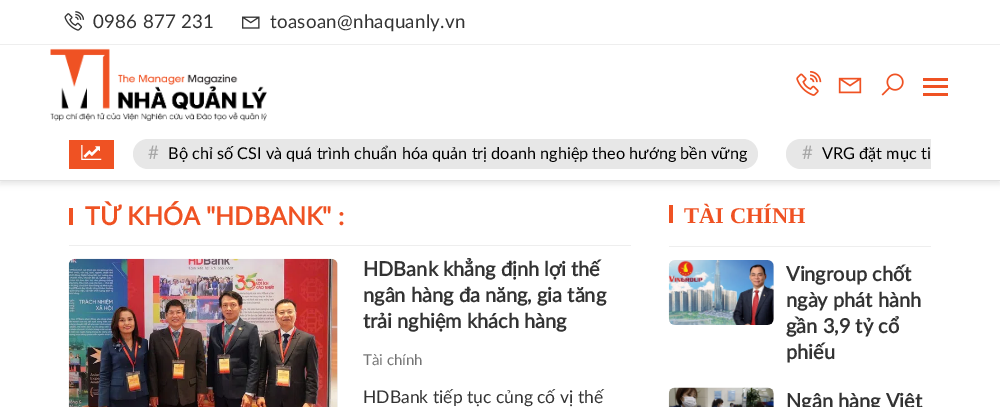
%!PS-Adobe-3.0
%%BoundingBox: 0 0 1000 407
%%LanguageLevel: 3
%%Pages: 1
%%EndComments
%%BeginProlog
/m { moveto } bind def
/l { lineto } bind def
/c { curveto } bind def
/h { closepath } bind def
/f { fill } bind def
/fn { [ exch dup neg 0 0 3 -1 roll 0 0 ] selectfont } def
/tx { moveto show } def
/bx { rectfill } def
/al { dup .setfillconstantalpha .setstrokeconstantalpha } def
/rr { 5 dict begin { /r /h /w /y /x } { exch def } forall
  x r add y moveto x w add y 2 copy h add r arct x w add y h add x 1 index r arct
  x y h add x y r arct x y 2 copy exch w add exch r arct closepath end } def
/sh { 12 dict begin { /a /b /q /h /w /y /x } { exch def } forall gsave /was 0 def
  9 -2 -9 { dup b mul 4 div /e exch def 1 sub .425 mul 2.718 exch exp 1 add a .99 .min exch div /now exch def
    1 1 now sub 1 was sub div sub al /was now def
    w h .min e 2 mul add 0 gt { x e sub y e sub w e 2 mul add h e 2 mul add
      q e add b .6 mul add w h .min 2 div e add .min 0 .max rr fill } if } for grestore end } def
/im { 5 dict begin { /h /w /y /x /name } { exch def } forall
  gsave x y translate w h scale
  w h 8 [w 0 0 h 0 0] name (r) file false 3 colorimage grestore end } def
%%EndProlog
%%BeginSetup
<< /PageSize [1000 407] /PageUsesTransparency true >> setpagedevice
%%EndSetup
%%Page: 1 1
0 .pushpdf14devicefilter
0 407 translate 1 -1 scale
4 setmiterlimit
1 setgray
0 0 1000 407 bx
0 setgray
0 3 1000 181 0 3 0.1 sh
1 setgray
0 0 1000 44 bx
0.933 setgray
0 44 1000 1 bx
(image0.raw) 64 11 21 20 im
/Lato-Regular 18.75 fn
0.2 setgray
93 28 m 0.25 0 (0986 877 231) ashow
(image1.raw) 242 16 18 13 im
270 28 m 0.25 0 (toasoan@nhaquanly.vn) ashow
1 setgray
0 45 1000 135 bx
(image2.raw) 50 48 217 73 im
(image3.raw) 796 71 26 25 im
(image4.raw) 838 77 24 17 im
(image5.raw) 881 73 23 23 im
0.937 0.322 0.137 setrgbcolor
923 85 25 3 bx
923 78 25 3 bx
923 93 25 3 bx
0.882 setgray
0 180 1000 1 bx
0.937 0.322 0.137 setrgbcolor
69 140 45 29 bx
(image6.raw) 81 145 21 15 im
0.906 setgray
133 139 625 30 15 rr f
0.655 setgray
(#) 148 159 tx
/Lato-Regular 16.25 fn
0 setgray
(Bộ chỉ số CSI và quá trình chuẩn hóa quản trị doanh nghiệp theo hướng bền vững) 168 159 tx
0.906 setgray
801 139 m 931 139 l 931 169 l 801 169 l 792.5 169 786 162.5 786 154 c 786 145.5 792.5 139 801 139 c h f
/Lato-Regular 18.75 fn
0.655 setgray
(#) 802 159 tx
/Lato-Regular 16.25 fn
0 setgray
(VRG đặt mục ti) 822 159 tx
0.933 setgray
69 245 562 1 bx
0.937 0.322 0.137 setrgbcolor
69 208 4 17 bx
/Lato-Bold 25 fn
(TỪ KHÓA "HDBANK" :) 85 225 tx
0.961 0.957 0.957 setrgbcolor
69 259 269 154 6 rr f
(image7.raw) 68 258 270 149 im
/Lato-Bold 20 fn
0.2 setgray
(HDBank khẳng định lợi thế) 363 276 tx
(ngân hàng đa năng, gia tăng) 363 302 tx
(trải nghiệm khách hàng) 363 328 tx
/Lato-Regular 15 fn
0.459 setgray
(Tài chính) 363 365 tx
/Lato-Regular 17.5 fn
0.2 setgray
(HDBank tiếp tục củng cố vị thế) 363 403 tx
0.933 setgray
669 246 262 1 bx
0.937 0.322 0.137 setrgbcolor
669 205 4 18 bx
/LiberationSerif-Bold 22.5 fn
(TÀI CHÍNH) 684 223 tx
0.961 0.957 0.957 setrgbcolor
669 260 105 65 6 rr f
(image8.raw) 668 260 106 65 im
/Lato-Bold 20 fn
0.2 setgray
(Vingroup chốt) 786 281 tx
(ngày phát hành) 786 307 tx
(gần 3,9 tỷ cổ) 786 333 tx
(phiếu) 786 359 tx
0.961 0.957 0.957 setrgbcolor
669 388 105 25 6 rr f
(image9.raw) 668 387 106 20 im
0.2 setgray
(Ngân hàng Việt) 786 408 tx
.poppdf14devicefilter showpage
%%EOF
